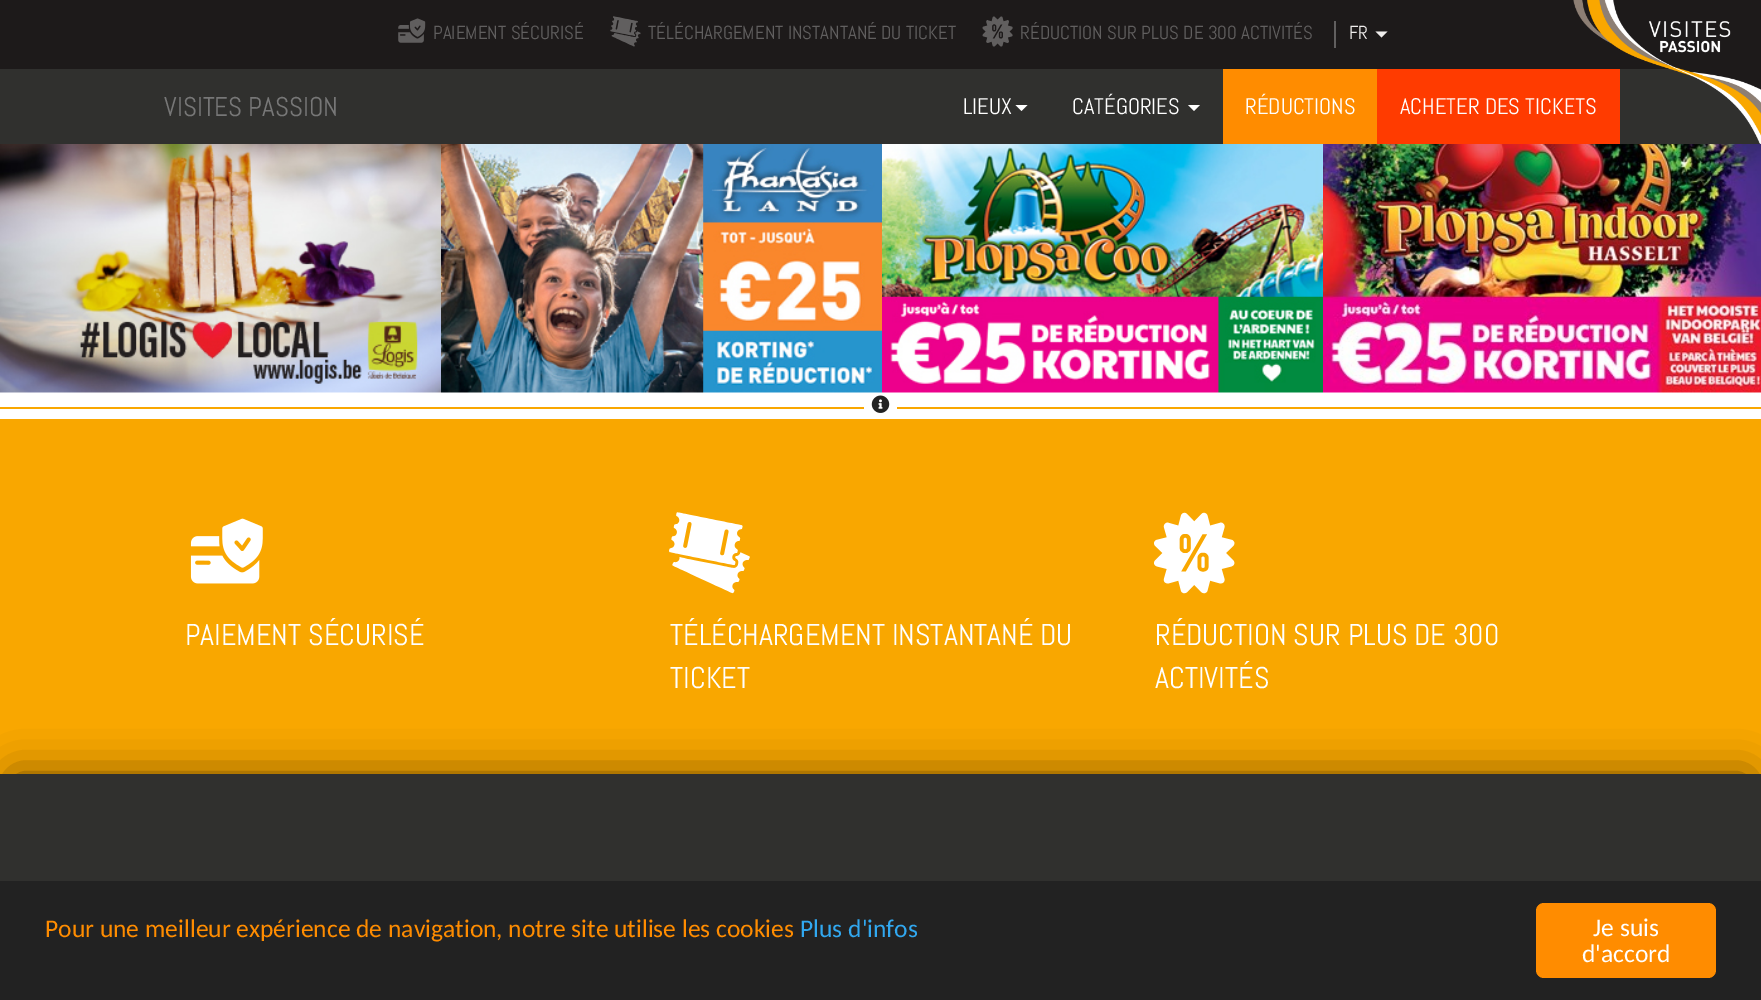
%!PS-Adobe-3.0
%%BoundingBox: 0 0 1761 1000
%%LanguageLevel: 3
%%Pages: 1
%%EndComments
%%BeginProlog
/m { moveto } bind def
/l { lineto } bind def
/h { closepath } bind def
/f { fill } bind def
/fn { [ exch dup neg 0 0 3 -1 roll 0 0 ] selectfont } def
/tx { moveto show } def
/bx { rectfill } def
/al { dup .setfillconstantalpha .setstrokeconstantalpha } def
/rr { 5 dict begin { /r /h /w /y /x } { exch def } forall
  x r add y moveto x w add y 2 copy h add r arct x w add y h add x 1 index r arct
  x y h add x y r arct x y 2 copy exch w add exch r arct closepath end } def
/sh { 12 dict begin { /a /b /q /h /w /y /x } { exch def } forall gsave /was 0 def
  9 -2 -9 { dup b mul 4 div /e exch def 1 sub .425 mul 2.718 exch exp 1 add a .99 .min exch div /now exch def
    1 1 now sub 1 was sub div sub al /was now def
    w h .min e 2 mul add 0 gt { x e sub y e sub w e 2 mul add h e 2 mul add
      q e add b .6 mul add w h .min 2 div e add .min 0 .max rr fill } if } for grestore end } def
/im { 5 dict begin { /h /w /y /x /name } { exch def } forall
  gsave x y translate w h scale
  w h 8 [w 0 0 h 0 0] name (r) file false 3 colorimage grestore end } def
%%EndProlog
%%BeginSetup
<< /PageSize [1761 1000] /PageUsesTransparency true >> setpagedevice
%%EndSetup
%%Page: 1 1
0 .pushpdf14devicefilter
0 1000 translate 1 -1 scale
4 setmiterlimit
1 setgray
0 0 1761 1000 bx
0.114 0.102 0.102 setrgbcolor
0 0 1670 69 bx
(image0.raw) 398 18 28 25 im
/Abel-Regular 18.9 fn
0.38 0.373 0.373 setrgbcolor
(PAIEMENT SÉCURISÉ) 433 39 tx
(image1.raw) 610 16 31 31 im
(TÉLÉCHARGEMENT INSTANTANÉ DU TICKET) 648 39 tx
(image2.raw) 982 16 31 31 im
(RÉDUCTION SUR PLUS DE 300 ACTIVITÉS) 1020 39 tx
1334 21 2 27 bx
0.937 0.929 0.925 setrgbcolor
(FR) 1349 39 tx
1375.5 31.5 m 1387.5 31.5 l 1381.5 37.5 l h f
0.188 0.188 0.18 setrgbcolor
0 69 1761 75 bx
1 0.231 0 setrgbcolor
1377 69 243 75 bx
/Abel-Regular 22.5 fn
1 setgray
(ACHETER DES TICKETS) 1400 114 tx
(image3.raw) 1573 0 188 144 im
/Abel-Regular 27 fn
0.467 setgray
(VISITES PASSION) 164 116 tx
/Abel-Regular 22.5 fn
1 setgray
(LIEUX) 963 114 tx
1015.5 105 m 1027.5 105 l 1021.5 111 l h f
(CATÉGORIES) 1072 114 tx
1188 105 m 1200 105 l 1194 111 l h f
1 0.549 0 setrgbcolor
1223 69 154 75 bx
1 setgray
(RÉDUCTIONS) 1245 114 tx
(image4.raw) 0 144 441 249 im
(image5.raw) 441 144 441 249 im
(image6.raw) 882 144 441 249 im
(image7.raw) 1323 144 438 249 im
0.976 0.655 0 setrgbcolor
0 407 1761 2 bx
1 setgray
864 407 33 2 bx
(image8.raw) 871 395 19 18 im
0.976 0.655 0 setrgbcolor
0 419 1761 355 bx
(image9.raw) 190 518 73 66 im
/Abel-Regular 30 fn
1 setgray
(PAIEMENT SÉCURISÉ) 185 645 tx
(image10.raw) 669 512 81 82 im
(TÉLÉCHARGEMENT INSTANTANÉ DU) 670 645 tx
(TICKET) 670 688 tx
(image11.raw) 1154 512 81 82 im
(RÉDUCTION SUR PLUS DE 300) 1155 645 tx
(ACTIVITÉS) 1155 688 tx
0 setgray
14 776 1734 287 0 21 0.59 sh
0.188 0.188 0.18 setrgbcolor
0 774 1761 107 bx
0.133 setgray
0 881 1761 119 bx
/Carlito-Regular 25.5 fn
1 0.549 0 setrgbcolor
(Pour une meilleur expérience de navigation, notre site utilise les cookies) 45 937 tx
0.192 0.659 0.941 setrgbcolor
(Plus d'infos) 800 937 tx
1 0.549 0 setrgbcolor
1536 903 180 75 8 rr f
1 setgray
(Je suis) 1593 936 tx
(d'accord) 1582 962 tx
.poppdf14devicefilter showpage
%%EOF
